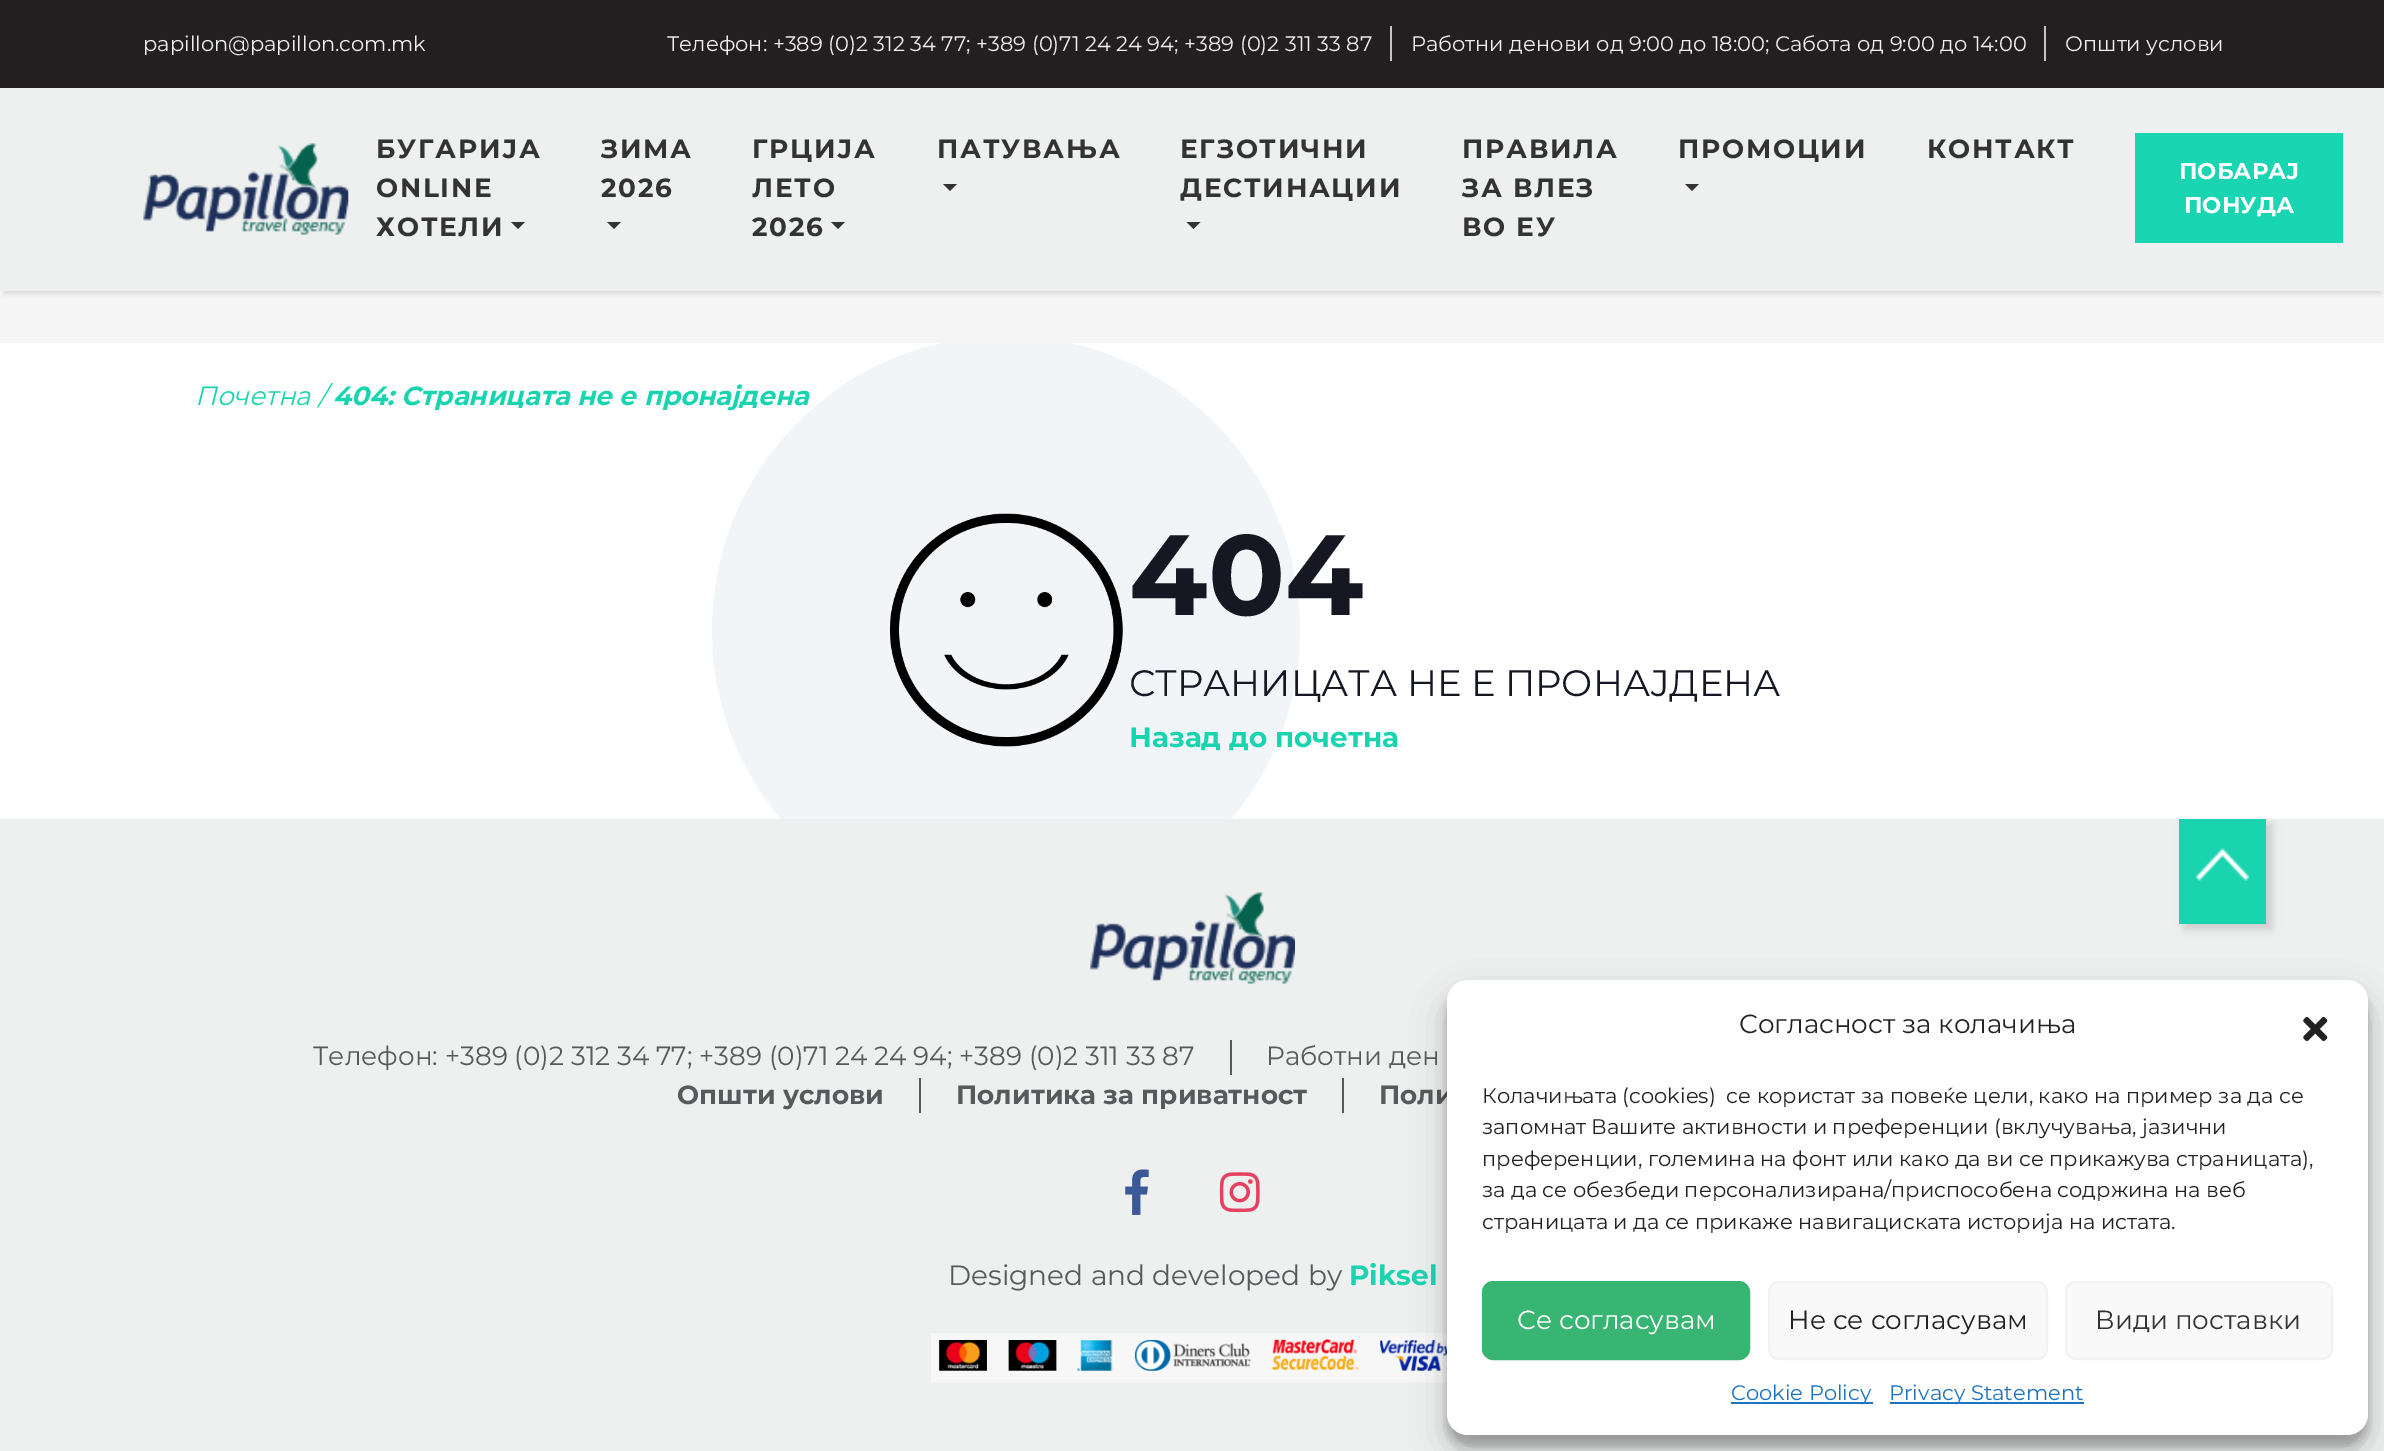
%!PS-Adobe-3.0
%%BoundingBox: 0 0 2384 1451
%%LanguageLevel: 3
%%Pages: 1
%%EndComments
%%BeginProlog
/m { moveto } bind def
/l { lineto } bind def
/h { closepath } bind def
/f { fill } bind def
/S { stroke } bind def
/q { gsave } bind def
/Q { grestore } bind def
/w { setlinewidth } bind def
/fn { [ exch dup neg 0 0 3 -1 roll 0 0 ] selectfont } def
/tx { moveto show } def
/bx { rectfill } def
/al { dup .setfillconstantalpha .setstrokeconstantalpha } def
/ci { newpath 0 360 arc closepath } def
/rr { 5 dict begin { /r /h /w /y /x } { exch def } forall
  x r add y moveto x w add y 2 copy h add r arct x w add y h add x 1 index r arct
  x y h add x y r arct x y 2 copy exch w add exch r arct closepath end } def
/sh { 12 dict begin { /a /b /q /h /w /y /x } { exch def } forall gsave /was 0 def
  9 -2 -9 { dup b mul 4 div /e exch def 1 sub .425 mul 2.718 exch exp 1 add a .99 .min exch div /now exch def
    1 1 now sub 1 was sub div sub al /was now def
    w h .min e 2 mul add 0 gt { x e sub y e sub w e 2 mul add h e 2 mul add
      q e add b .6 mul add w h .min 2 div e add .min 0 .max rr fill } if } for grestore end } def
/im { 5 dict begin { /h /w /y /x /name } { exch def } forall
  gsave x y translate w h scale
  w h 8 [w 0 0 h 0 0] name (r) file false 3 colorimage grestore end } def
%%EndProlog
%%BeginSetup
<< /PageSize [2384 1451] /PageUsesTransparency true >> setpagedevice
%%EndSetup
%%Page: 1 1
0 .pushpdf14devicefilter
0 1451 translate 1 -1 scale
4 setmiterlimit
1 setgray
0 0 2384 1451 bx
0.137 0.122 0.125 setrgbcolor
0 0 2384 88 bx
/Montserrat-Regular 21 fn
0.933 0.937 0.937 setrgbcolor
(papillon@papillon.com.mk) 143 51 tx
(Телефон: +389 \(0\)2 312 34 77; +389 \(0\)71 24 24 94; +389 \(0\)2 311 33 87) 667 51 tx
0.773 0.773 0.776 setrgbcolor
1390 26 2 35 bx
0.933 0.937 0.937 setrgbcolor
(Работни денови од 9:00 до 18:00; Сабота од 9:00 до 14:00) 1411 51 tx
0.773 0.773 0.776 setrgbcolor
2044 26 2 35 bx
0.933 0.937 0.937 setrgbcolor
(Општи услови) 2065 51 tx
0.949 0.961 0.973 setrgbcolor
1006 630 294 ci f
0.961 setgray
0 291 2384 52 bx
0.863 setgray
4 98 2378 196 0 2 1 sh
0.933 0.937 0.937 setrgbcolor
0 88 2384 203 bx
(image0.raw) 143 143 206 92 im
/Montserrat-Bold 26.25 fn
0.2 setgray
376 158 m 1.75 0 (БУГАРИЈА) ashow
376 197 m 1.75 0 (ONLINE) ashow
376 236 m 1.75 0 (ХОТЕЛИ) ashow
511 222 m 525 222 l 518 229 l h f
601 158 m 1.75 0 (ЗИМА) ashow
601 197 m 1.75 0 (2026) ashow
607 222 m 621 222 l 614 229 l h f
752 158 m 1.75 0 (ГРЦИЈА) ashow
752 197 m 1.75 0 (ЛЕТО) ashow
752 236 m 1.75 0 (2026) ashow
831 222 m 845 222 l 838 229 l h f
937 158 m 1.75 0 (ПАТУВАЊА) ashow
943 184 m 957 184 l 950 191 l h f
1180 158 m 1.75 0 (ЕГЗОТИЧНИ) ashow
1180 197 m 1.75 0 (ДЕСТИНАЦИИ) ashow
1186.5 222 m 1200.5 222 l 1193.5 229 l h f
1462 158 m 1.75 0 (ПРАВИЛА) ashow
1462 197 m 1.75 0 (ЗА ВЛЕЗ) ashow
1462 236 m 1.75 0 (ВО ЕУ) ashow
1678 158 m 1.75 0 (ПРОМОЦИИ) ashow
1685 184 m 1699 184 l 1692 191 l h f
1927 158 m 1.75 0 (КОНТАКТ) ashow
0.102 0.835 0.694 setrgbcolor
2135 133 208 110 bx
/Montserrat-Bold 22.75 fn
1 setgray
(ПОБАРАЈ) 2179 179 tx
(ПОНУДА) 2184 213 tx
/Montserrat-Italic 26.25 fn
0.102 0.831 0.69 setrgbcolor
(Почетна /) 195 405 tx
/Montserrat-BoldItalic 26.25 fn
(404: Страницата не е пронајдена) 333 405 tx
(image1.raw) 890 513 233 234 im
/Montserrat-Bold 114 fn
0.082 0.09 0.137 setrgbcolor
(404) 1129 615 tx
/Montserrat-Regular 36.75 fn
(СТРАНИЦАТА НЕ Е ПРОНАЈДЕНА) 1129 696 tx
/Montserrat-Bold 28 fn
0.102 0.831 0.69 setrgbcolor
(Назад до почетна) 1129 747 tx
0.933 0.937 0.937 setrgbcolor
0 819 2384 632 bx
0.804 setgray
2184 824 88 105 0 4.5 1 sh
0.102 0.831 0.69 setrgbcolor
2179 819 87 105 bx
(image2.raw) 2195 848 55 33 im
(image3.raw) 1090 892 205 92 im
/Montserrat-Regular 26.25 fn
0.345 0.349 0.357 setrgbcolor
(Телефон: +389 \(0\)2 312 34 77; +389 \(0\)71 24 24 94; +389 \(0\)2 311 33 87) 313 1065 tx
1230 1040 2 35 bx
(Работни ден) 1266 1065 tx
/Montserrat-Bold 26.25 fn
(Општи услови) 677 1104 tx
919 1078 2 35 bx
(Политика за приватност) 956 1104 tx
1342 1078 2 35 bx
(Поли) 1379 1104 tx
(image4.raw) 1125 1169 24 46 im
(image5.raw) 1219 1172 41 41 im
/Montserrat-Regular 28 fn
(Designed and developed by) 948 1285 tx
/Montserrat-Bold 28 fn
0.102 0.831 0.69 setrgbcolor
(Piksel) 1349 1285 tx
(image6.raw) 931 1333 516 50 im
0 setgray
1447 991 921 455 21 5 0.23 sh
1447 998 921 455 21 17.5 0.19 sh
1 setgray
1447 980 921 455 21 rr f
/Montserrat-Regular 26.25 fn
0.133 setgray
(Согласност за колачиња) 1739 1033 tx
(image7.raw) 2303 1017 25 24 im
/Montserrat-Regular 21 fn
(Колачињата \(cookies\)  се користат за повеќе цели, како на пример за да се) 1482 1103 tx
(запомнат Вашите активности и преференции \(вклучувања, јазични) 1482 1134 tx
(преференции, големина на фонт или како да ви се прикажува страницата\),) 1482 1166 tx
(за да се обезбеди персонализирана/приспособена содржина на веб) 1482 1197 tx
(страницата и да се прикаже навигациската историја на истата.) 1482 1229 tx
0.22 0.71 0.447 setrgbcolor
1483 1282 266 77 10 rr q f Q
2 w
S
/Montserrat-Regular 26.25 fn
1 setgray
(Се согласувам) 1517 1329 tx
0.976 setgray
1769 1282 278 77 10 rr q f Q
0.949 setgray
S
0.133 setgray
(Не се согласувам) 1788 1329 tx
0.976 setgray
2066 1282 266 77 10 rr q f Q
0.949 setgray
S
0.2 setgray
(Види поставки) 2095 1329 tx
0.118 0.451 0.745 setrgbcolor
1731 1402 142 2 bx
/Montserrat-Regular 21 fn
(Cookie Policy) 1731 1400 tx
1890 1402 194 2 bx
(Privacy Statement) 1889 1400 tx
.poppdf14devicefilter showpage
%%EOF
